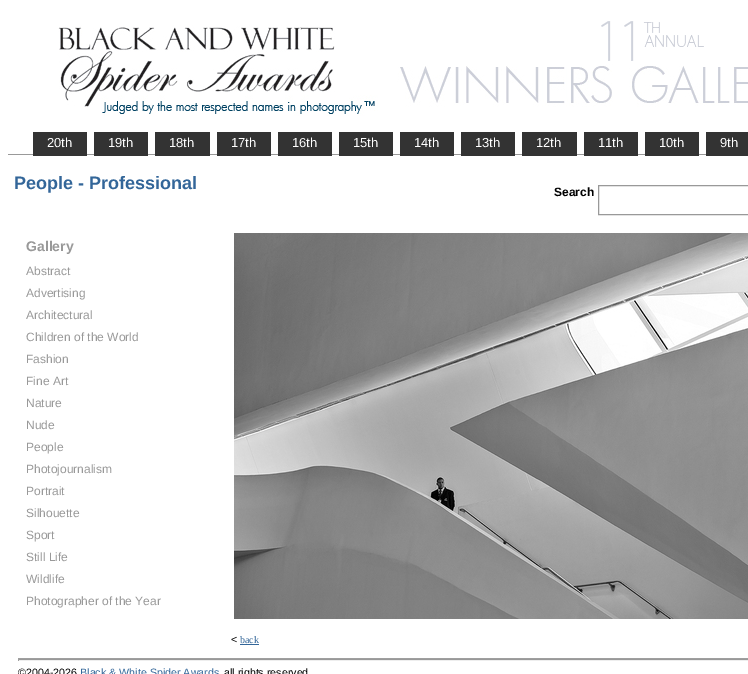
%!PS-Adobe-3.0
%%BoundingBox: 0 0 748 674
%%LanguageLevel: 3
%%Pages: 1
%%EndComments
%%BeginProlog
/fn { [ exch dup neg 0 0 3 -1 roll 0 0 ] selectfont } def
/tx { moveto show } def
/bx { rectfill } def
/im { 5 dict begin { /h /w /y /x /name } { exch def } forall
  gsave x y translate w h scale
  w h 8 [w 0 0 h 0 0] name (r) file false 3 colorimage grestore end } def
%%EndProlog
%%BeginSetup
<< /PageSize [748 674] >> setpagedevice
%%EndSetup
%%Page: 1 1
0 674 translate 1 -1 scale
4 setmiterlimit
1 setgray
0 0 748 674 bx
(image0.raw) 58 21 690 95 im
0.6 setgray
8 154 698 1 bx
0.2 setgray
33 132 54 24 bx
/LiberationSans-Regular 13 fn
1 setgray
(20th) 47 147 tx
0.2 setgray
94 132 54 24 bx
1 setgray
(19th) 108 147 tx
0.2 setgray
155 132 55 24 bx
1 setgray
(18th) 169 147 tx
0.2 setgray
217 132 54 24 bx
1 setgray
(17th) 231 147 tx
0.2 setgray
278 132 54 24 bx
1 setgray
(16th) 292 147 tx
0.2 setgray
339 132 54 24 bx
1 setgray
(15th) 353 147 tx
0.2 setgray
400 132 54 24 bx
1 setgray
(14th) 414 147 tx
0.2 setgray
461 132 54 24 bx
1 setgray
(13th) 475 147 tx
0.2 setgray
522 132 55 24 bx
1 setgray
(12th) 536 147 tx
0.2 setgray
584 132 54 24 bx
1 setgray
(11th) 598 147 tx
0.2 setgray
645 132 54 24 bx
1 setgray
(10th) 659 147 tx
0.2 setgray
706 132 42 24 bx
1 setgray
(9th) 720 147 tx
/LiberationSans-Bold 18 fn
0.2 0.4 0.6 setrgbcolor
(People - Professional) 14 189 tx
/LiberationSans-Bold 12 fn
0 setgray
(Search) 554 196 tx
0.6 setgray
598.5 185.5 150 29 rectstroke
/LiberationSans-Bold 14 fn
(Gallery) 26 251 tx
/LiberationSans-Regular 12 fn
(Abstract) 26 275 tx
(Advertising) 26 297 tx
(Architectural) 26 319 tx
(Children of the World) 26 341 tx
(Fashion) 26 363 tx
(Fine Art) 26 385 tx
(Nature) 26 407 tx
(Nude) 26 429 tx
(People) 26 451 tx
(Photojournalism) 26 473 tx
(Portrait) 26 495 tx
(Silhouette) 26 517 tx
(Sport) 26 539 tx
(Still Life) 26 561 tx
(Wildlife) 26 583 tx
(Photographer of the Year) 26 605 tx
(image1.raw) 234 233 514 386 im
/LiberationSans-Regular 10.7 fn
0 setgray
(<) 231 643 tx
/LiberationSerif-Regular 10 fn
0.2 0.4 0.6 setrgbcolor
(back) 240 643 tx
240 644 19 1 bx
0.6 setgray
18 659 730 1 bx
0.624 setgray
18 658 730 1 bx
0.933 setgray
18 660 730 1 bx
0.624 setgray
18 658 1 3 bx
/LiberationSans-Regular 10.7 fn
0 setgray
(©2004-2026) 18 676 tx
0.2 0.4 0.6 setrgbcolor
(Black & White Spider Awards) 80 676 tx
0 setgray
(all rights reserved) 224 676 tx
showpage
%%EOF
